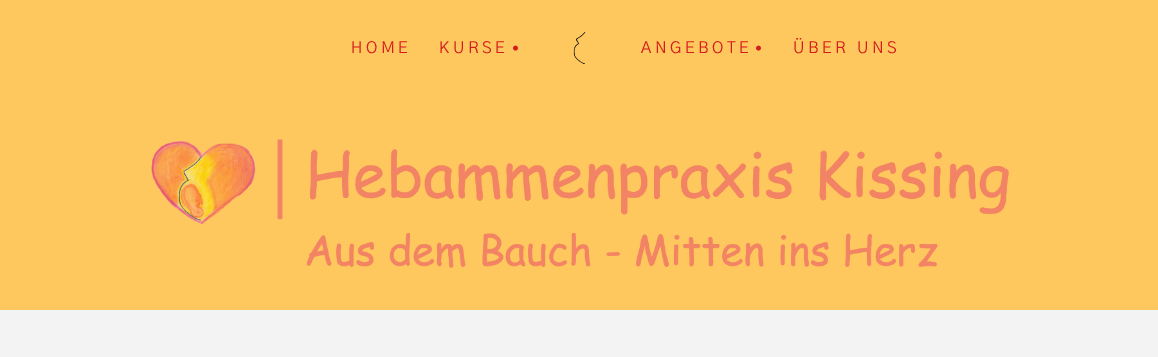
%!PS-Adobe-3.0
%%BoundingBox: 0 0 1158 357
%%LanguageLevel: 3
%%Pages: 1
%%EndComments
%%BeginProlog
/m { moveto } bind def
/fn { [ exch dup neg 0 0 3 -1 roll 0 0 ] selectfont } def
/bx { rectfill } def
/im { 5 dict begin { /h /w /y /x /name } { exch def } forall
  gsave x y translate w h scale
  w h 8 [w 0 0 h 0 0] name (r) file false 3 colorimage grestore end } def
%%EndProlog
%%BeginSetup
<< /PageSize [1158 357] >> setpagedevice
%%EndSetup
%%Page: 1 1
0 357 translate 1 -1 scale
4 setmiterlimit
0.953 setgray
0 0 1158 357 bx
1 0.784 0.373 setrgbcolor
0 0 1158 310 bx
(image0.raw) 151 139 858 129 im
/GothicA1-Regular 16 fn
0.835 0.11 0.11 setrgbcolor
351 53 m 3.5 0 (HOME) ashow
439 53 m 3.5 0 (KURSE) ashow
(image1.raw) 513 45 5 6 im
(image2.raw) 573 32 13 32 im
641 53 m 3.5 0 (ANGEBOTE) ashow
(image1.raw) 756 45 5 6 im
793 53 m 3.5 0 (ÜBER UNS) ashow
showpage
%%EOF
